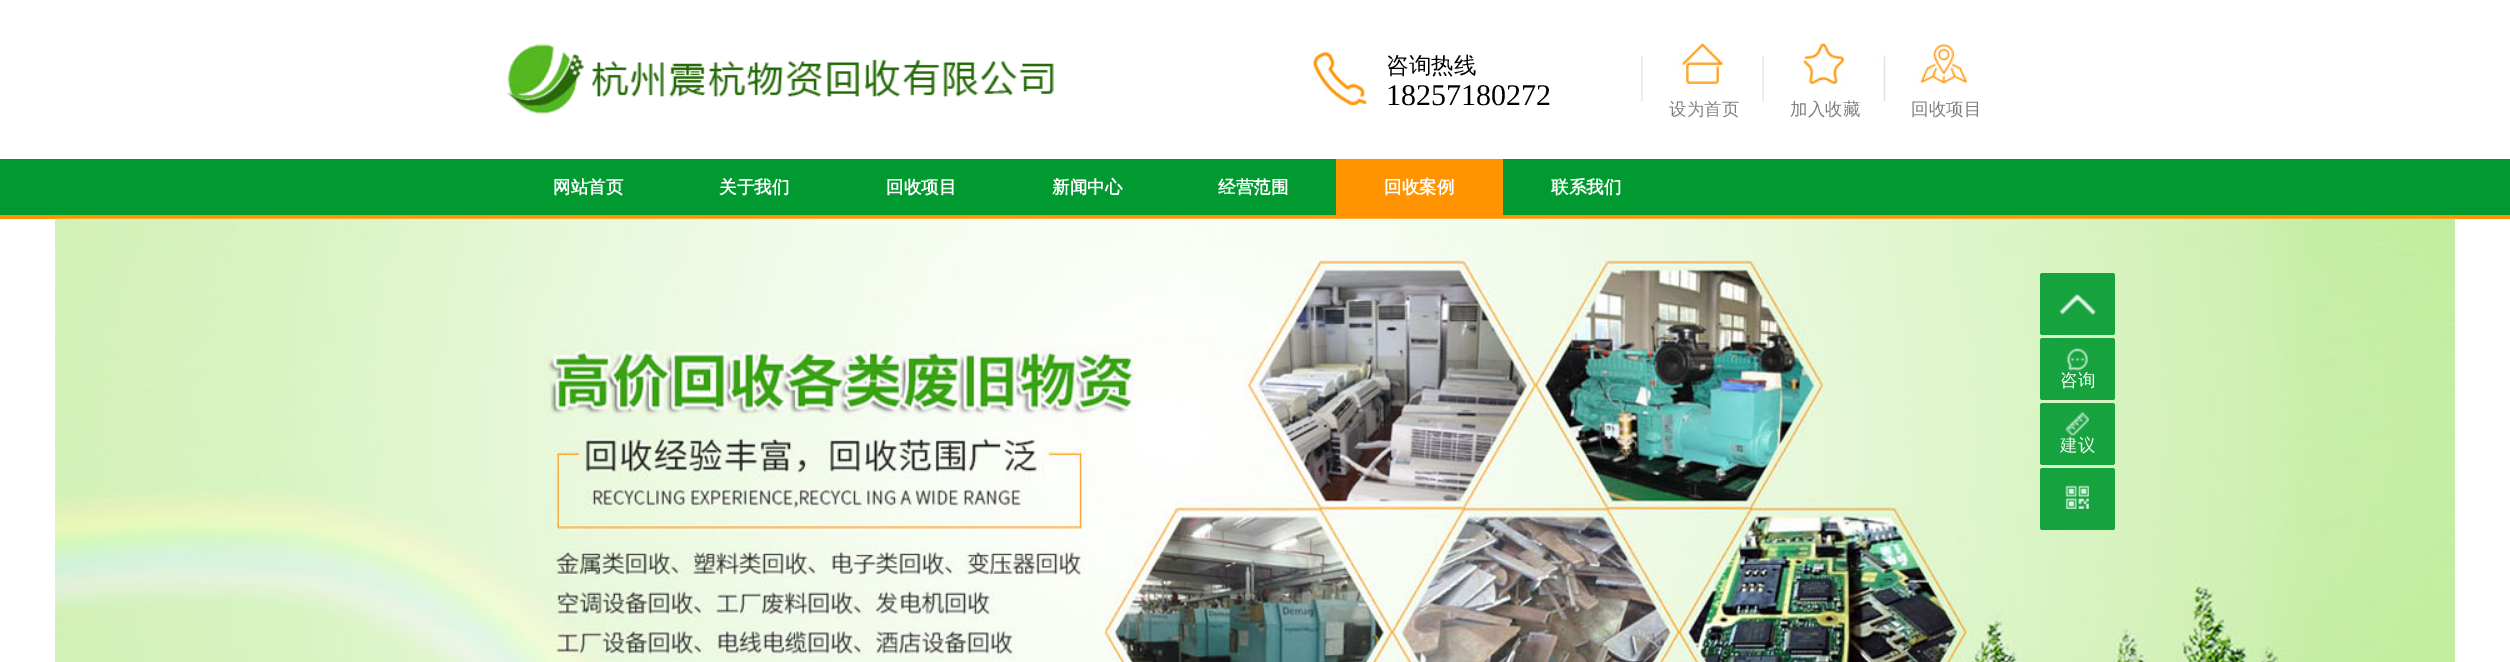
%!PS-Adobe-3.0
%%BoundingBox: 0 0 2510 662
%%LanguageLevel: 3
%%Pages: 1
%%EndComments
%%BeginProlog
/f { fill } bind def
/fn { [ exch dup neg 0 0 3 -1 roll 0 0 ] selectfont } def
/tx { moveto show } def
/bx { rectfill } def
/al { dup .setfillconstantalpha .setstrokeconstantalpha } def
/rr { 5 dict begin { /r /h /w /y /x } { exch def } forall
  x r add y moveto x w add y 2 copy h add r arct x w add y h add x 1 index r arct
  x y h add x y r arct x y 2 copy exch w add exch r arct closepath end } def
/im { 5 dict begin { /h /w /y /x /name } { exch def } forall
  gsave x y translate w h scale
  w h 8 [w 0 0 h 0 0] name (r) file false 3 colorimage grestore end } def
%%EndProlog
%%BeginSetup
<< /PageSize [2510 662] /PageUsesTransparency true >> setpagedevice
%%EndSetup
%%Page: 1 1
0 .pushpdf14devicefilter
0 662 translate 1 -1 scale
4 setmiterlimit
1 setgray
0 0 2510 662 bx
(image0.raw) 506 43 548 72 im
(image1.raw) 1313 43 655 63 im
/WenQuanYiZenHei-Medium 22.5 fn
0 setgray
(咨询热线) 1386 73 tx
/LiberationSerif-Regular 30 fn
(18257180272) 1386 105 tx
/WenQuanYiZenHei-Medium 17.5 fn
0.498 setgray
(设为首页) 1669 115 tx
(加入收藏) 1790 115 tx
(回收项目) 1911 115 tx
0.004 0.604 0.188 setrgbcolor
0 159 2510 56 bx
1 0.576 0 setrgbcolor
0 215 2510 4 bx
/WenQuanYiZenHei-Bold 17.5 fn
1 setgray
(网站首页) 553 193 tx
(关于我们) 719 193 tx
(回收项目) 886 193 tx
(新闻中心) 1052 193 tx
(经营范围) 1218 193 tx
1 0.576 0 setrgbcolor
1336 159 167 56 bx
1 setgray
(回收案例) 1384 193 tx
(联系我们) 1551 193 tx
(image2.raw) 55 218 2400 444 im
0.9 al
0.004 0.604 0.188 setrgbcolor
2040 273 75 62 2.5 rr f
1 al
(image3.raw) 2059 294 37 22 im
0.9 al
2040 338 75 62 2.5 rr f
1 al
(image4.raw) 2066 348 22 23 im
/WenQuanYiZenHei-Medium 17.5 fn
0.984 0.996 0.976 setrgbcolor
(咨询) 2060 386 tx
0.9 al
0.004 0.604 0.188 setrgbcolor
2040 403 75 62 2.5 rr f
1 al
(image5.raw) 2065 411 24 25 im
0.91 0.965 0.925 setrgbcolor
(建议) 2060 451 tx
0.9 al
0.004 0.604 0.188 setrgbcolor
2040 468 75 62 2.5 rr f
1 al
(image6.raw) 2065 485 24 24 im
.poppdf14devicefilter showpage
%%EOF
